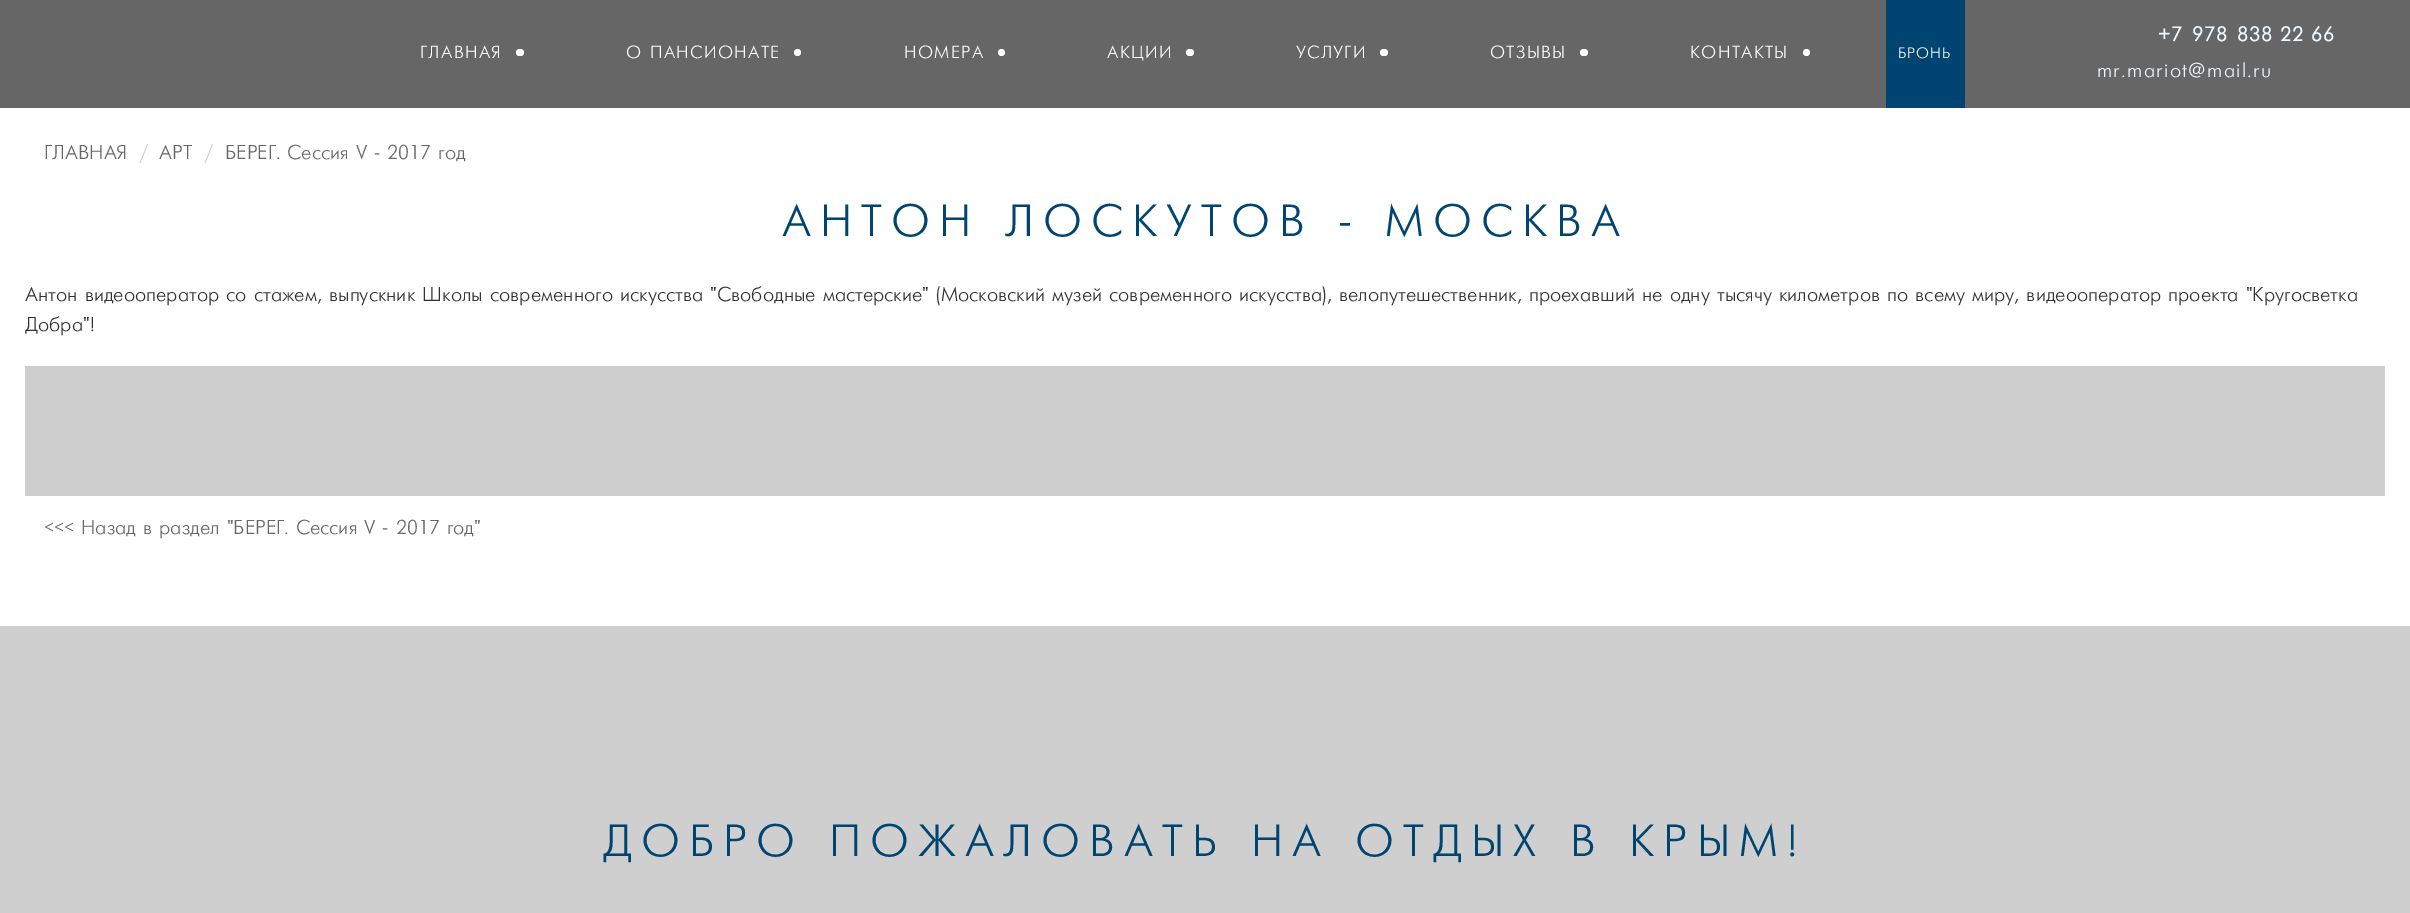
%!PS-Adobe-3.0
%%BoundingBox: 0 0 2410 913
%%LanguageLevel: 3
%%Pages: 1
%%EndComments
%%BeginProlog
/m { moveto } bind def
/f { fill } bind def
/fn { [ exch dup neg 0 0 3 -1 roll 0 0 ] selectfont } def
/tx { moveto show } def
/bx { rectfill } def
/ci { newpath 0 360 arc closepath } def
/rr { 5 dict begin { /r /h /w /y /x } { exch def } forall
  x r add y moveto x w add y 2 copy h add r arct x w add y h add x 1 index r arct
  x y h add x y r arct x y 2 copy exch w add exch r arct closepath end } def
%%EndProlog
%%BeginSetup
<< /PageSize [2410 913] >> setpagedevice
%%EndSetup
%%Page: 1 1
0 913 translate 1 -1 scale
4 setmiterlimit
1 setgray
0 0 2410 913 bx
0.4 setgray
0 0 2410 108 bx
/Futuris-Regular 17.5 fn
1 setgray
420 58 m 1.3 0 (ГЛАВНАЯ) ashow
516 49 8 7 3.5 rr f
626 58 m 1.3 0 (О ПАНСИОНАТЕ) ashow
797.5 52.5 3.5 ci f
904 58 m 1.3 0 (НОМЕРА) ashow
1001.5 52.5 3.5 ci f
1107 58 m 1.3 0 (АКЦИИ) ashow
1186 49 8 7 3.5 rr f
1296 58 m 1.3 0 (УСЛУГИ) ashow
1380 49 8 7 3.5 rr f
1490 58 m 1.3 0 (ОТЗЫВЫ) ashow
1580 49 8 7 3.5 rr f
1690 58 m 1.3 0 (КОНТАКТЫ) ashow
1806.5 52.5 3.5 ci f
0 0.267 0.443 setrgbcolor
1886 0 79 108 bx
/Futuris-Regular 15 fn
1 setgray
1898 58 m 1 0 (БРОНЬ) ashow
/Futuris-Bold 20 fn
0.941 0.973 1 setrgbcolor
2158 41 m 1.3 0 (+7 978 838) ashow
2280 41 m 1.3 0 (22) ashow
2311 41 m 1.3 0 (66) ashow
/Futuris-Regular 20 fn
2097 77 m 1.3 0 (mr.mariot@mail.ru) ashow
0.4 setgray
(ГЛАВНАЯ) 44 159 tx
0.8 setgray
(/) 139 159 tx
0.4 setgray
(АРТ) 159 159 tx
0.8 setgray
(/) 204 159 tx
0.4 setgray
(БЕРЕГ. Сессия V - 2017 год) 225 159 tx
/Futuris-Regular 45 fn
0 0.267 0.443 setrgbcolor
782 236 m 9 0 (АНТОН ЛОСКУТОВ - МОСКВА) ashow
/Futuris-Regular 20 fn
0.196 setgray
(Антон видеооператор со стажем, выпускник Школы современного искусства "Свободные мастерские" \(Московский музей современного искусства\), велопутешественник, проехавший не одну тысячу километров по всему миру, видеооператор проекта "Кругосветка) 25 301 tx
(Добра"!) 25 331 tx
0.812 setgray
25 366 2360 130 bx
0.4 setgray
(<<< Назад в раздел "БЕРЕГ. Сессия V - 2017 год") 44 534 tx
0.812 setgray
0 626 2410 287 bx
/Futuris-Regular 45 fn
0 0.267 0.443 setrgbcolor
603 856 m 9 0 (ДОБРО ПОЖАЛОВАТЬ НА ОТДЫХ В КРЫМ!) ashow
showpage
%%EOF
